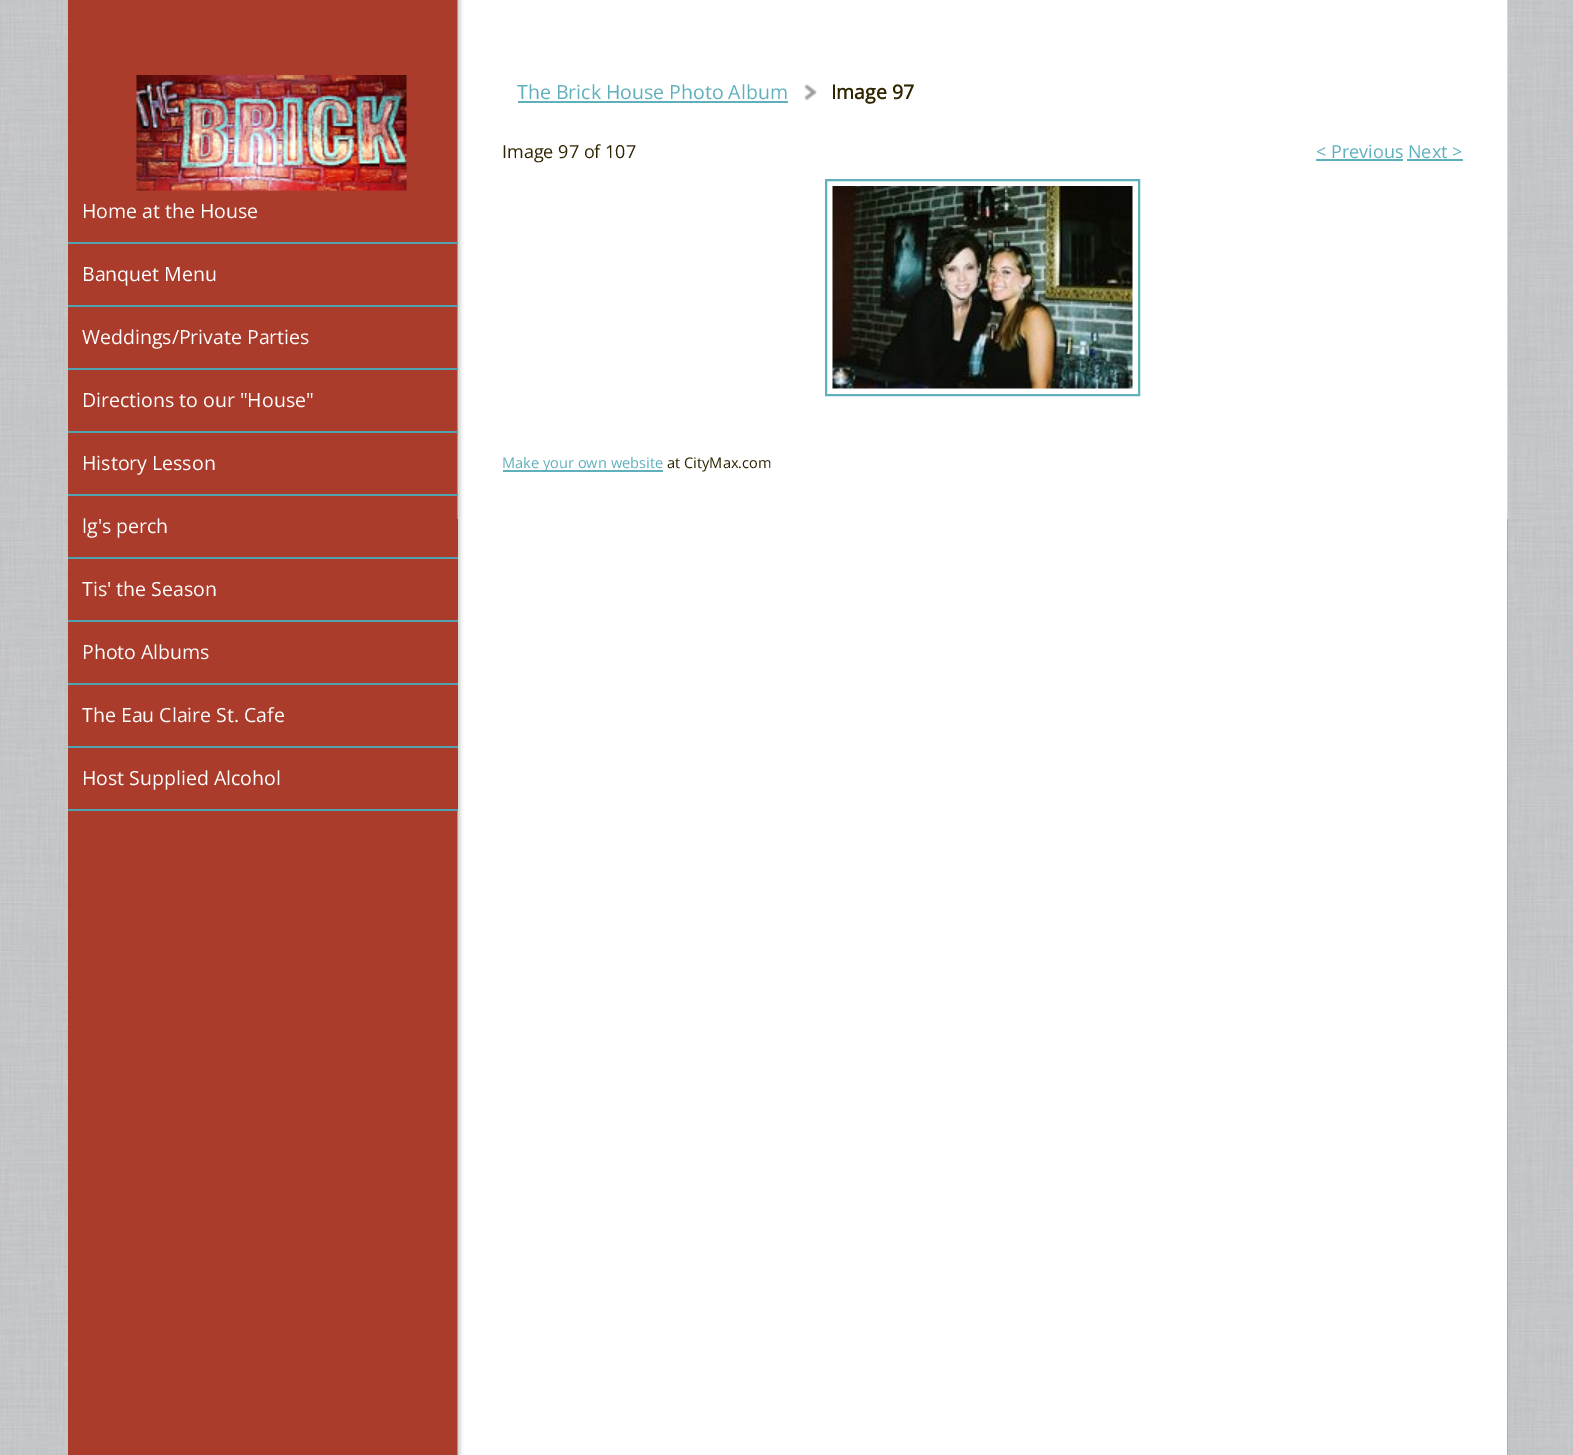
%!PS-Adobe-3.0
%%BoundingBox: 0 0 1573 1455
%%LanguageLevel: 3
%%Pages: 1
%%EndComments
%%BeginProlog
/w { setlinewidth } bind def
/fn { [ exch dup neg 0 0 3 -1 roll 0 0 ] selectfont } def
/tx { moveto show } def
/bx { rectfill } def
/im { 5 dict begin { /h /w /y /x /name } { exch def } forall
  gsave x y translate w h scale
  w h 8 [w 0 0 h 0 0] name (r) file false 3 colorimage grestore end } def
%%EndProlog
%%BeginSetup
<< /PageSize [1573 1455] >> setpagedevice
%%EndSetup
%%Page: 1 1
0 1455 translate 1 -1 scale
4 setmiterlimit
1 setgray
0 0 1573 1455 bx
(image0.raw) 0 0 1573 1455 im
0.671 0.235 0.169 setrgbcolor
68 0 1440 1455 bx
(image1.raw) 457 0 1051 1455 im
457 0 1 809 bx
(image2.raw) 136 75 271 116 im
(image3.raw) 457 0 1051 519 im
0.314 0.639 0.686 setrgbcolor
68 242 390 2 bx
/OpenSans-Regular 19.5 fn
1 setgray
(Home at the House) 82 218 tx
0.314 0.639 0.686 setrgbcolor
68 305 390 2 bx
1 setgray
(Banquet Menu) 82 281 tx
0.314 0.639 0.686 setrgbcolor
68 368 390 2 bx
1 setgray
(Weddings/Private Parties) 82 344 tx
0.314 0.639 0.686 setrgbcolor
68 431 390 2 bx
1 setgray
(Directions to our "House") 82 407 tx
0.314 0.639 0.686 setrgbcolor
68 494 390 2 bx
1 setgray
(History Lesson) 82 470 tx
0.314 0.639 0.686 setrgbcolor
68 557 390 2 bx
1 setgray
(lg's perch) 82 533 tx
0.314 0.639 0.686 setrgbcolor
68 620 390 2 bx
1 setgray
(Tis' the Season) 82 596 tx
0.314 0.639 0.686 setrgbcolor
68 683 390 2 bx
1 setgray
(Photo Albums) 82 659 tx
0.314 0.639 0.686 setrgbcolor
68 746 390 2 bx
1 setgray
(The Eau Claire St. Cafe) 82 722 tx
0.314 0.639 0.686 setrgbcolor
68 809 390 2 bx
1 setgray
(Host Supplied Alcohol) 82 785 tx
0.376 0.69 0.737 setrgbcolor
(The Brick House Photo Album) 517 99 tx
518 101 270 2 bx
(image4.raw) 804 84 13 17 im
/OpenSans-Bold 19.5 fn
0.18 0.141 0 setrgbcolor
(Image 97) 831 99 tx
/OpenSans-Regular 18 fn
(Image 97 of 107) 502 158 tx
0.376 0.69 0.737 setrgbcolor
(< Previous Next >) 1316 158 tx
1316 159 87 2 bx
1407 159 56 2 bx
2 w
826 180 313 215 rectstroke
(image5.raw) 832 186 301 203 im
503 470 160 2 bx
/OpenSans-Regular 14.6 fn
(Make your own website) 502 468 tx
0.18 0.141 0 setrgbcolor
(at CityMax.com) 667 468 tx
showpage
%%EOF
